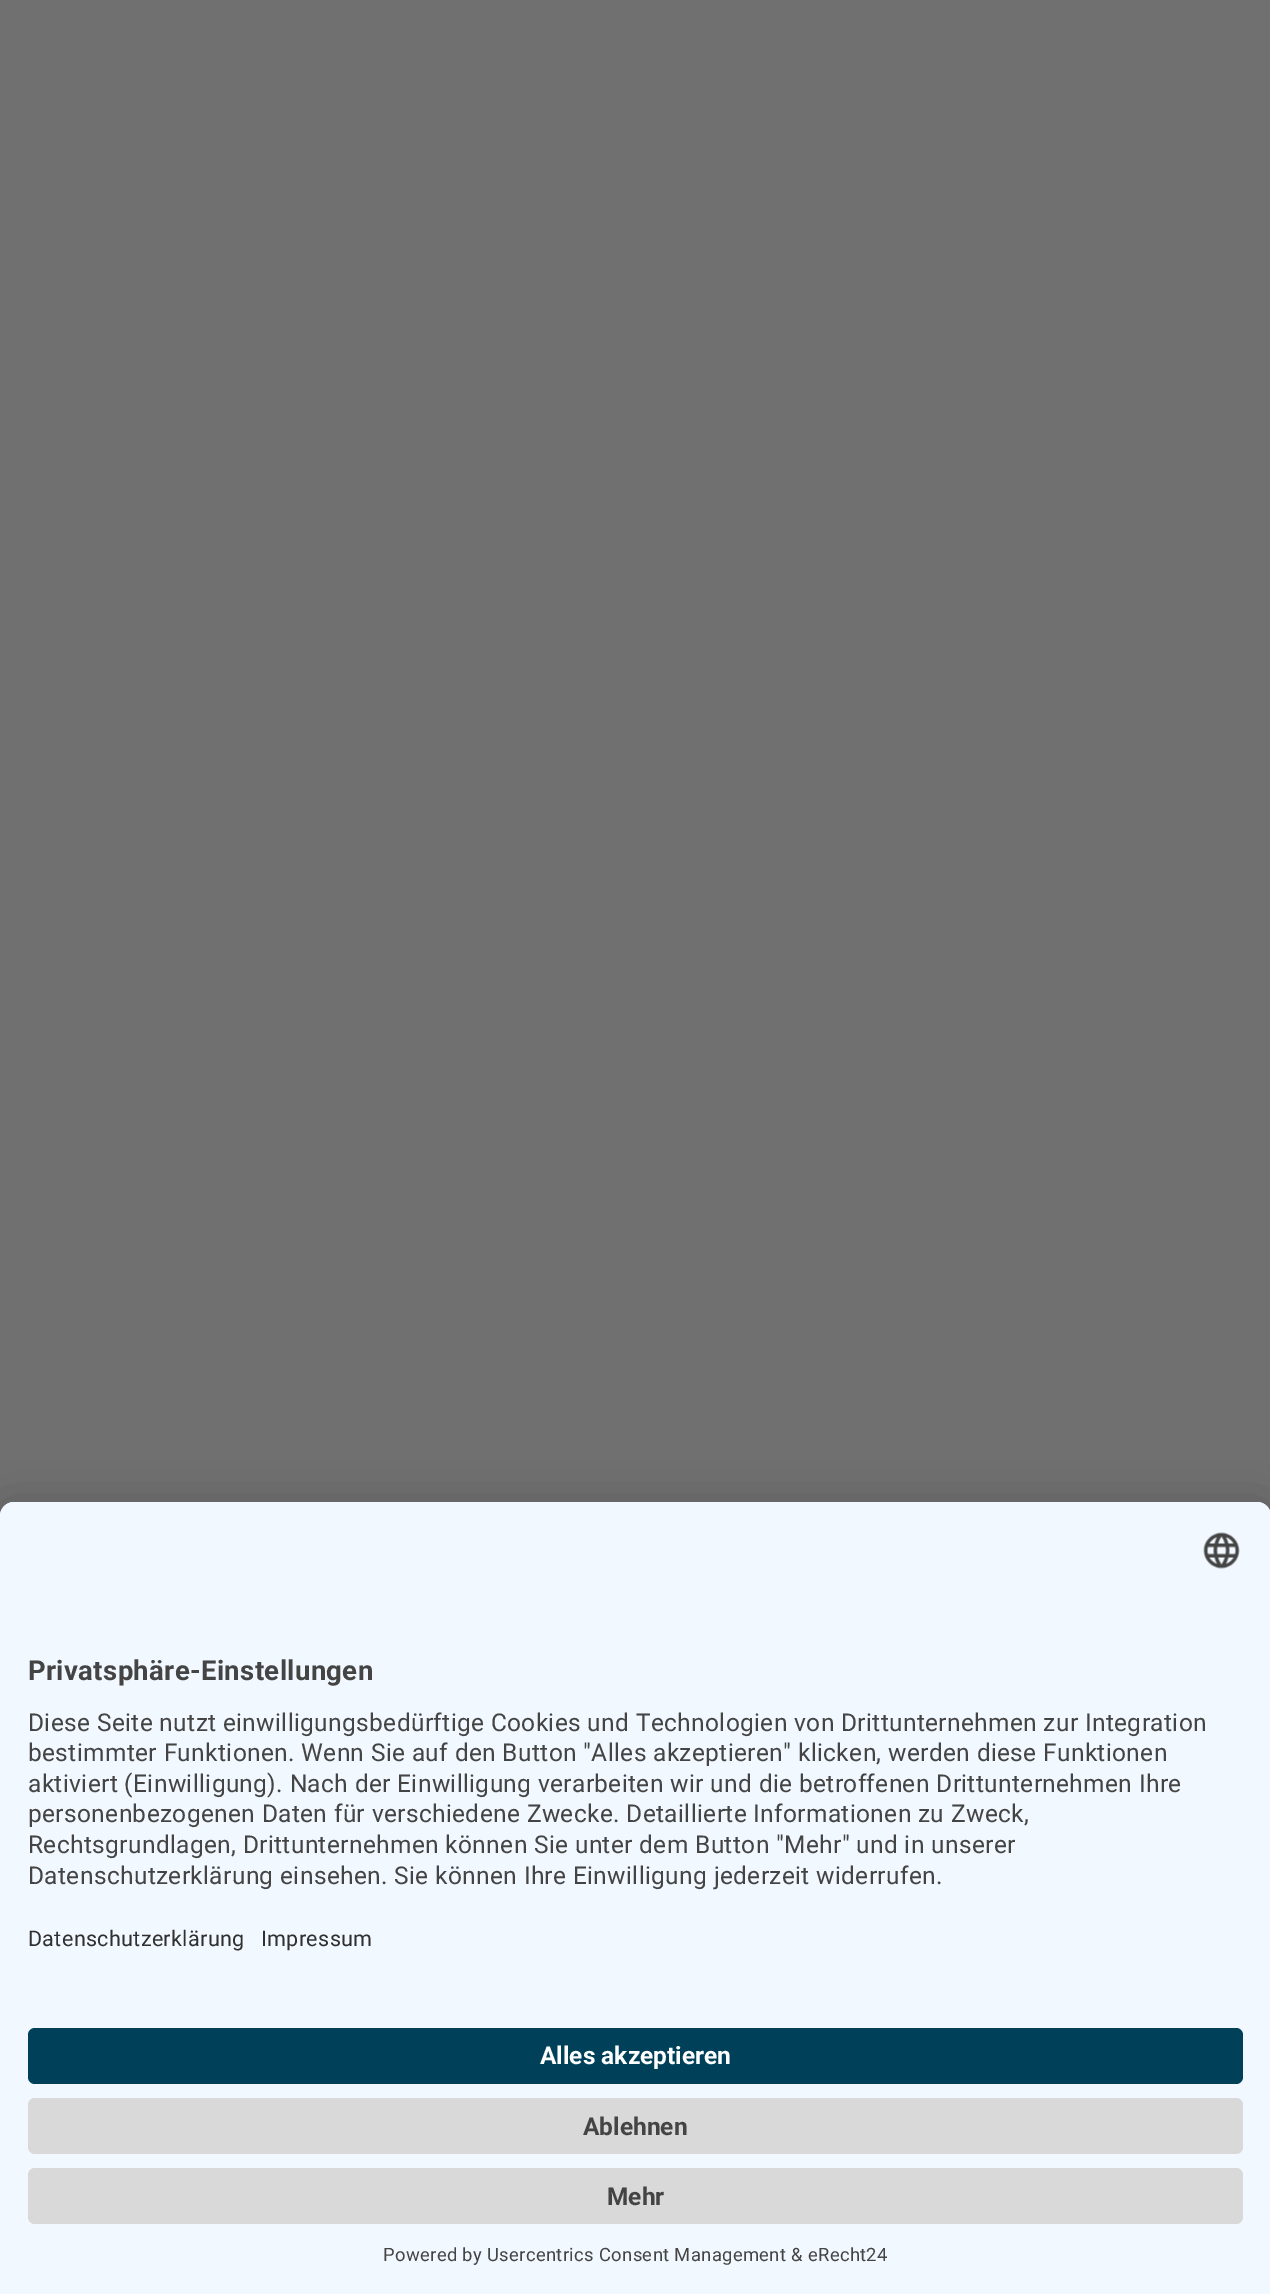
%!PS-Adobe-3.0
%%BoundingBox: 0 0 1270 2294
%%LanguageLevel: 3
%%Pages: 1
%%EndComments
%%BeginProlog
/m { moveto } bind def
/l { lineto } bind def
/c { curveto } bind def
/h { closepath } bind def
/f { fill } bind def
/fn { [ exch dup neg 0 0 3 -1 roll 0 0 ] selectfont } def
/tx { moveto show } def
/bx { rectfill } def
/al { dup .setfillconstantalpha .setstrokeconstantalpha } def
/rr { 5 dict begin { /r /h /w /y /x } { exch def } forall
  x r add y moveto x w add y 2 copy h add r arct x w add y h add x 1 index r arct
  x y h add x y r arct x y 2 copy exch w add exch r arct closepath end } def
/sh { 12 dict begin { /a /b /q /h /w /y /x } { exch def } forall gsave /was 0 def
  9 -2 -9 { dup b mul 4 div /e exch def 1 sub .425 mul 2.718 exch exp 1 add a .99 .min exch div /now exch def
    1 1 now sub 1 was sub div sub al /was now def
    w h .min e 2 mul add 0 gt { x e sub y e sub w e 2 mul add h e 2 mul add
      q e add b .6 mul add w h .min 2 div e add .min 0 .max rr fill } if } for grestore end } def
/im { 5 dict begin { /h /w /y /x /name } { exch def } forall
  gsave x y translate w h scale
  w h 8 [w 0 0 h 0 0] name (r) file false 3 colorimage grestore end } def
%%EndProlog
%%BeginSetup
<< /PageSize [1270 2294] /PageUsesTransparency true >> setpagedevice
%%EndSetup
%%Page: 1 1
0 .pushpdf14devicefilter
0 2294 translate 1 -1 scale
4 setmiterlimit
0.439 setgray
0 0 1270 2294 bx
0 setgray
0 1537 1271 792 14 24.5 0.3 sh
0 1510 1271 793 14 23 0.22 sh
0.945 0.973 1 setrgbcolor
14 1502 m 1257 1502 l 1264.5 1502 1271 1508.5 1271 1516 c 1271 2294 l 0 2294 l 0 1516 l 0 1508.5 6.5 1502 14 1502 c h f
14 1502 m 1257 1502 l 1264.5 1502 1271 1508.5 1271 1516 c 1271 2007 l 0 2007 l 0 1516 l 0 1508.5 6.5 1502 14 1502 c h f
(image0.raw) 1203 1532 37 37 im
/Roboto-Bold 27.5 fn
0.267 setgray
28 1680 m 0.35 0 (Privatsphäre-Einstellungen) ashow
/Roboto-Regular 24.5 fn
28 1731 m 0.35 0 (Diese Seite nutzt einwilligungsbedürftige Cookies und Technologien von Drittunternehmen zur Integration) ashow
28 1761 m 0.35 0 (bestimmter Funktionen. Wenn Sie auf den Button "Alles akzeptieren" klicken, werden diese Funktionen) ashow
28 1792 m 0.35 0 (aktiviert \(Einwilligung\). Nach der Einwilligung verarbeiten wir und die betroffenen Drittunternehmen Ihre) ashow
28 1822 m 0.35 0 (personenbezogenen Daten für verschiedene Zwecke. Detaillierte Informationen zu Zweck,) ashow
28 1853 m 0.35 0 (Rechtsgrundlagen, Drittunternehmen können Sie unter dem Button "Mehr" und in unserer) ashow
28 1884 m 0.35 0 (Datenschutzerklärung einsehen. Sie können Ihre Einwilligung jederzeit widerrufen.) ashow
/Roboto-Regular 21.5 fn
0.188 setgray
28 1946 m 0.35 0 (Datenschutzerklärung) ashow
261 1946 m 0.35 0 (Impressum) ashow
0 0.251 0.349 setrgbcolor
28 2028 1215 56 7 rr f
/Roboto-Bold 24.5 fn
1 setgray
(Alles akzeptieren) 540 2064 tx
0.851 setgray
28 2098 1215 56 7 rr f
0.267 setgray
(Ablehnen) 583 2135 tx
0.851 setgray
28 2168 1215 56 7 rr f
0.267 setgray
(Mehr) 607 2205 tx
/Roboto-Regular 18.4 fn
383 2261 m 0.35 0 (Powered by Usercentrics Consent Management & eRecht24) ashow
.poppdf14devicefilter showpage
%%EOF
